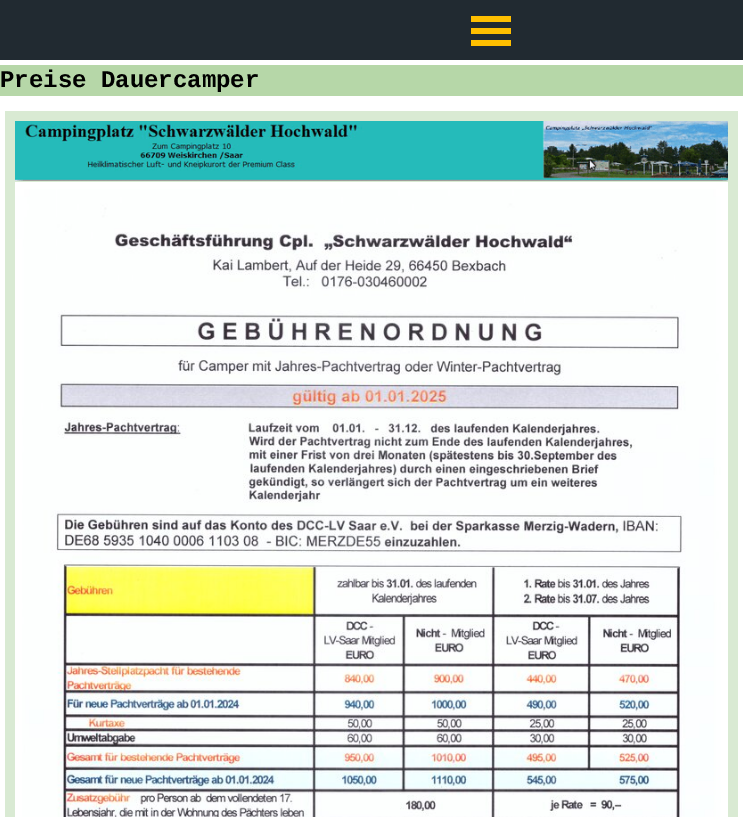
%!PS-Adobe-3.0
%%BoundingBox: 0 0 743 817
%%LanguageLevel: 3
%%Pages: 1
%%EndComments
%%BeginProlog
/fn { [ exch dup neg 0 0 3 -1 roll 0 0 ] selectfont } def
/tx { moveto show } def
/bx { rectfill } def
/im { 5 dict begin { /h /w /y /x /name } { exch def } forall
  gsave x y translate w h scale
  w h 8 [w 0 0 h 0 0] name (r) file false 3 colorimage grestore end } def
%%EndProlog
%%BeginSetup
<< /PageSize [743 817] >> setpagedevice
%%EndSetup
%%Page: 1 1
0 817 translate 1 -1 scale
4 setmiterlimit
1 setgray
0 0 743 817 bx
0.129 0.165 0.192 setrgbcolor
0 0 743 60 bx
1 0.749 0 setrgbcolor
471 16 40 6 bx
471 28 40 6 bx
471 40 40 6 bx
0.714 0.843 0.659 setrgbcolor
0 65 743 31 bx
/LiberationMono-Bold 24 fn
0 setgray
(Preise Dauercamper) 0 87 tx
0.851 0.918 0.827 setrgbcolor
5 111 733 706 bx
(image0.raw) 15 121 713 60 im
(image1.raw) 15 182 713 635 im
showpage
%%EOF
